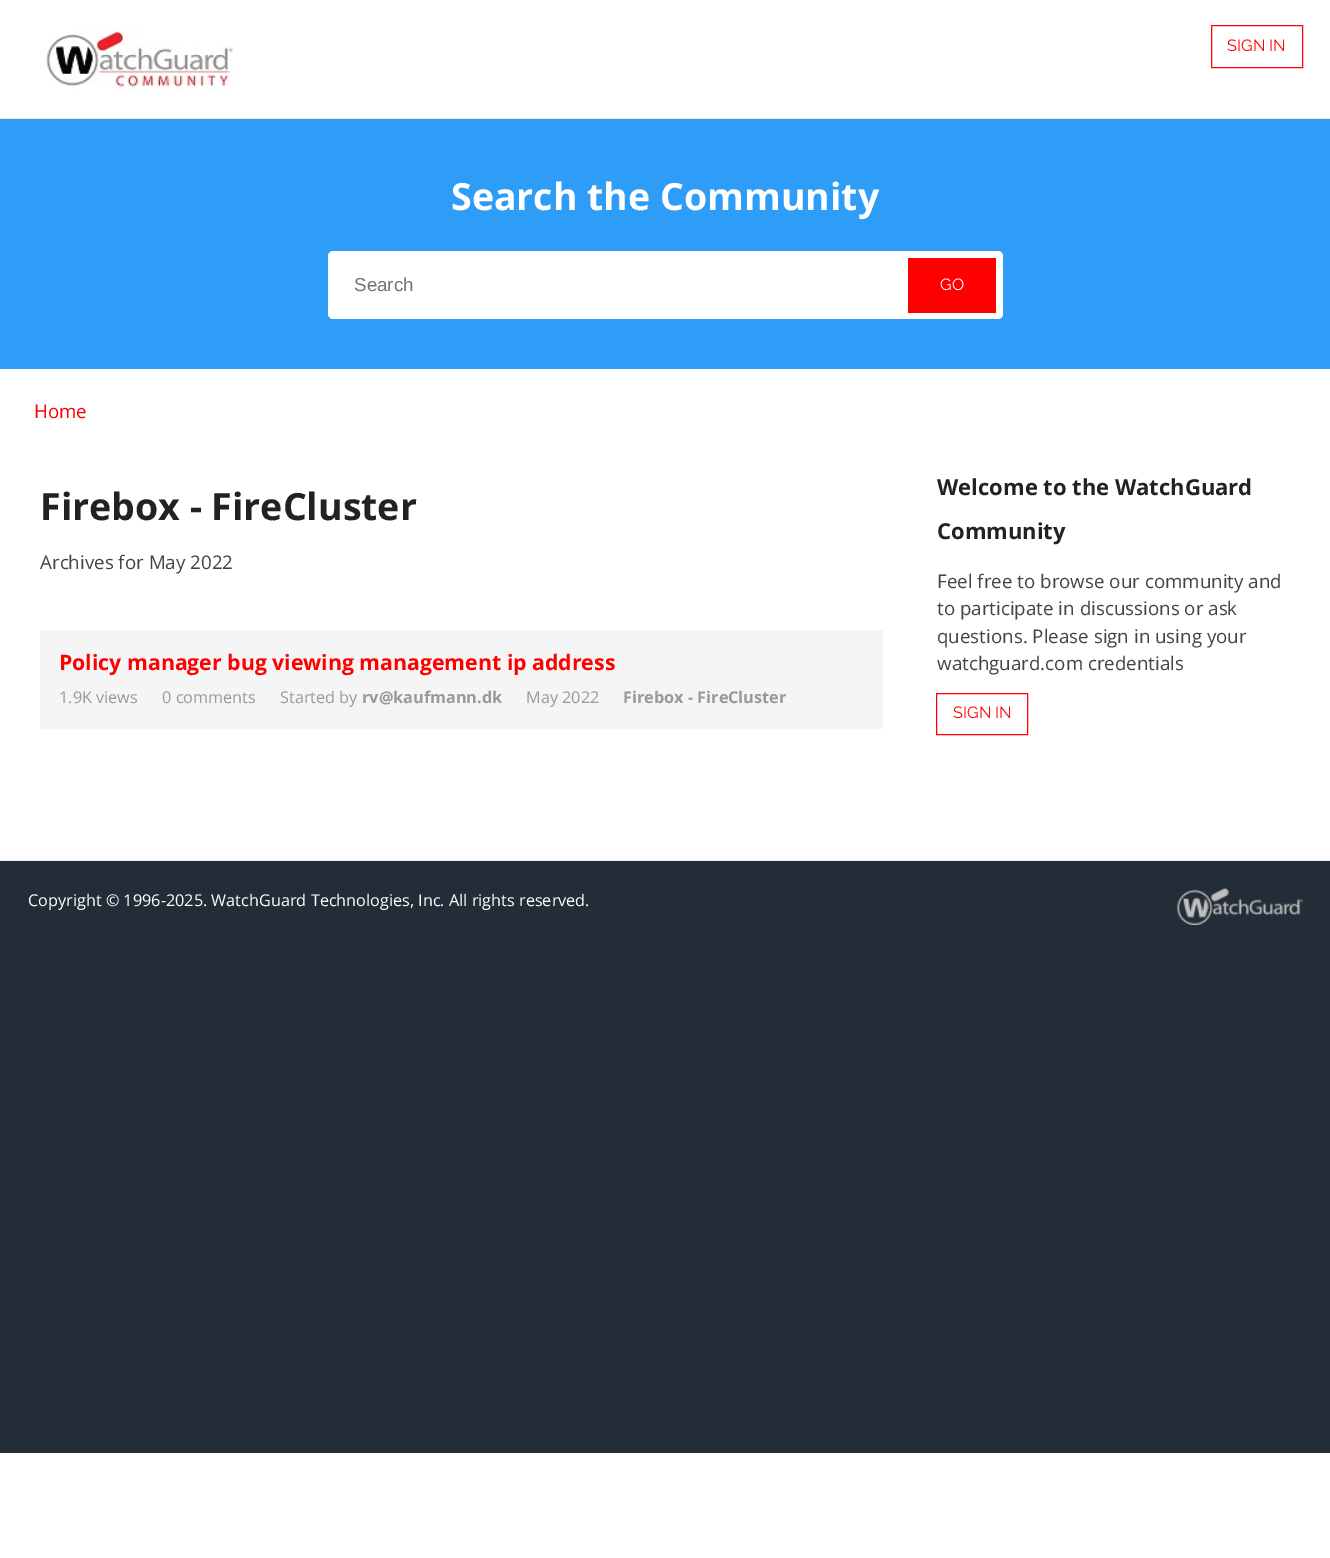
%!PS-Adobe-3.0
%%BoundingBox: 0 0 1330 1558
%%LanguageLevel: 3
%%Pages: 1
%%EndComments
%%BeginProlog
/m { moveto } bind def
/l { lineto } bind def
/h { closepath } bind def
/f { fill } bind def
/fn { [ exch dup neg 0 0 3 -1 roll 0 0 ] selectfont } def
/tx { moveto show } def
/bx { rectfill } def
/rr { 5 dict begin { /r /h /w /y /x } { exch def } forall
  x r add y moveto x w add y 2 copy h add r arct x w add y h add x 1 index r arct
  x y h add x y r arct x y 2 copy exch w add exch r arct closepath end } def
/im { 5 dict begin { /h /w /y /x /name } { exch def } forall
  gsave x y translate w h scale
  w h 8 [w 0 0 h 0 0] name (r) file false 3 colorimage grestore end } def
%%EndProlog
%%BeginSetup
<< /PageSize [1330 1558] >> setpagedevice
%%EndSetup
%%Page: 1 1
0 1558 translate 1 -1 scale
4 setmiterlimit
1 setgray
0 0 1330 1558 bx
0.898 setgray
0 118 1330 1 bx
(image0.raw) 46 25 191 68 im
1 0 0 setrgbcolor
1211.5 25.5 91 42 rectstroke
/Raleway-Thin 16.25 fn
(SIGN IN) 1227 51 tx
0.18 0.616 0.969 setrgbcolor
0 119 1330 250 bx
/OpenSans-Bold 37.5 fn
1 setgray
(Search the Community) 451 210 tx
328 251 675 68 5 rr f
/LiberationSans-Regular 18.75 fn
0.459 setgray
(Search) 354 291 tx
1 0 0 setrgbcolor
908 258 88 55 bx
/Raleway-Thin 16.25 fn
1 setgray
(GO) 940 290 tx
/OpenSans-Regular 18.75 fn
1 0 0 setrgbcolor
(Home) 34 418 tx
/OpenSans-Bold 37.5 fn
0.133 setgray
(Firebox - FireCluster) 40 520 tx
/OpenSans-Regular 18.75 fn
0.267 setgray
(Archives for May 2022) 40 569 tx
0.961 setgray
40 630 843 99 bx
/OpenSans-Bold 21.25 fn
1 0 0 setrgbcolor
(Policy manager bug viewing management ip address) 59 670 tx
/OpenSans-Regular 16.25 fn
0.6 setgray
(1.9K views) 59 703 tx
(0 comments) 162 703 tx
(Started by) 280 703 tx
/OpenSans-Bold 16.25 fn
(rv@kaufmann.dk) 362 703 tx
/OpenSans-Regular 16.25 fn
(May 2022) 526 703 tx
/OpenSans-Bold 16.25 fn
(Firebox - FireCluster) 623 703 tx
/OpenSans-Bold 22 fn
0.133 setgray
(Welcome to the WatchGuard) 937 495 tx
(Community) 937 539 tx
/OpenSans-Regular 18.75 fn
0.267 setgray
(Feel free to browse our community and) 937 588 tx
(to participate in discussions or ask) 937 615 tx
(questions. Please sign in using your) 937 643 tx
(watchguard.com credentials) 937 670 tx
1 0 0 setrgbcolor
936.5 693.5 91 41 rectstroke
/Raleway-Thin 16.25 fn
(SIGN IN) 953 718 tx
0.137 0.176 0.216 setrgbcolor
-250 860 m -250 1453 l 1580 1453 l 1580 860 l 1330 860 l 1330 952 l 0 952 l 0 860 l h f
0 861 1330 91 bx
0.933 setgray
0 860 1330 1 bx
/OpenSans-Regular 16.25 fn
1 setgray
(Copyright © 1996-2025. WatchGuard Technologies, Inc. All rights reserved.) 28 906 tx
(image1.raw) 1177 888 126 37 im
showpage
%%EOF
